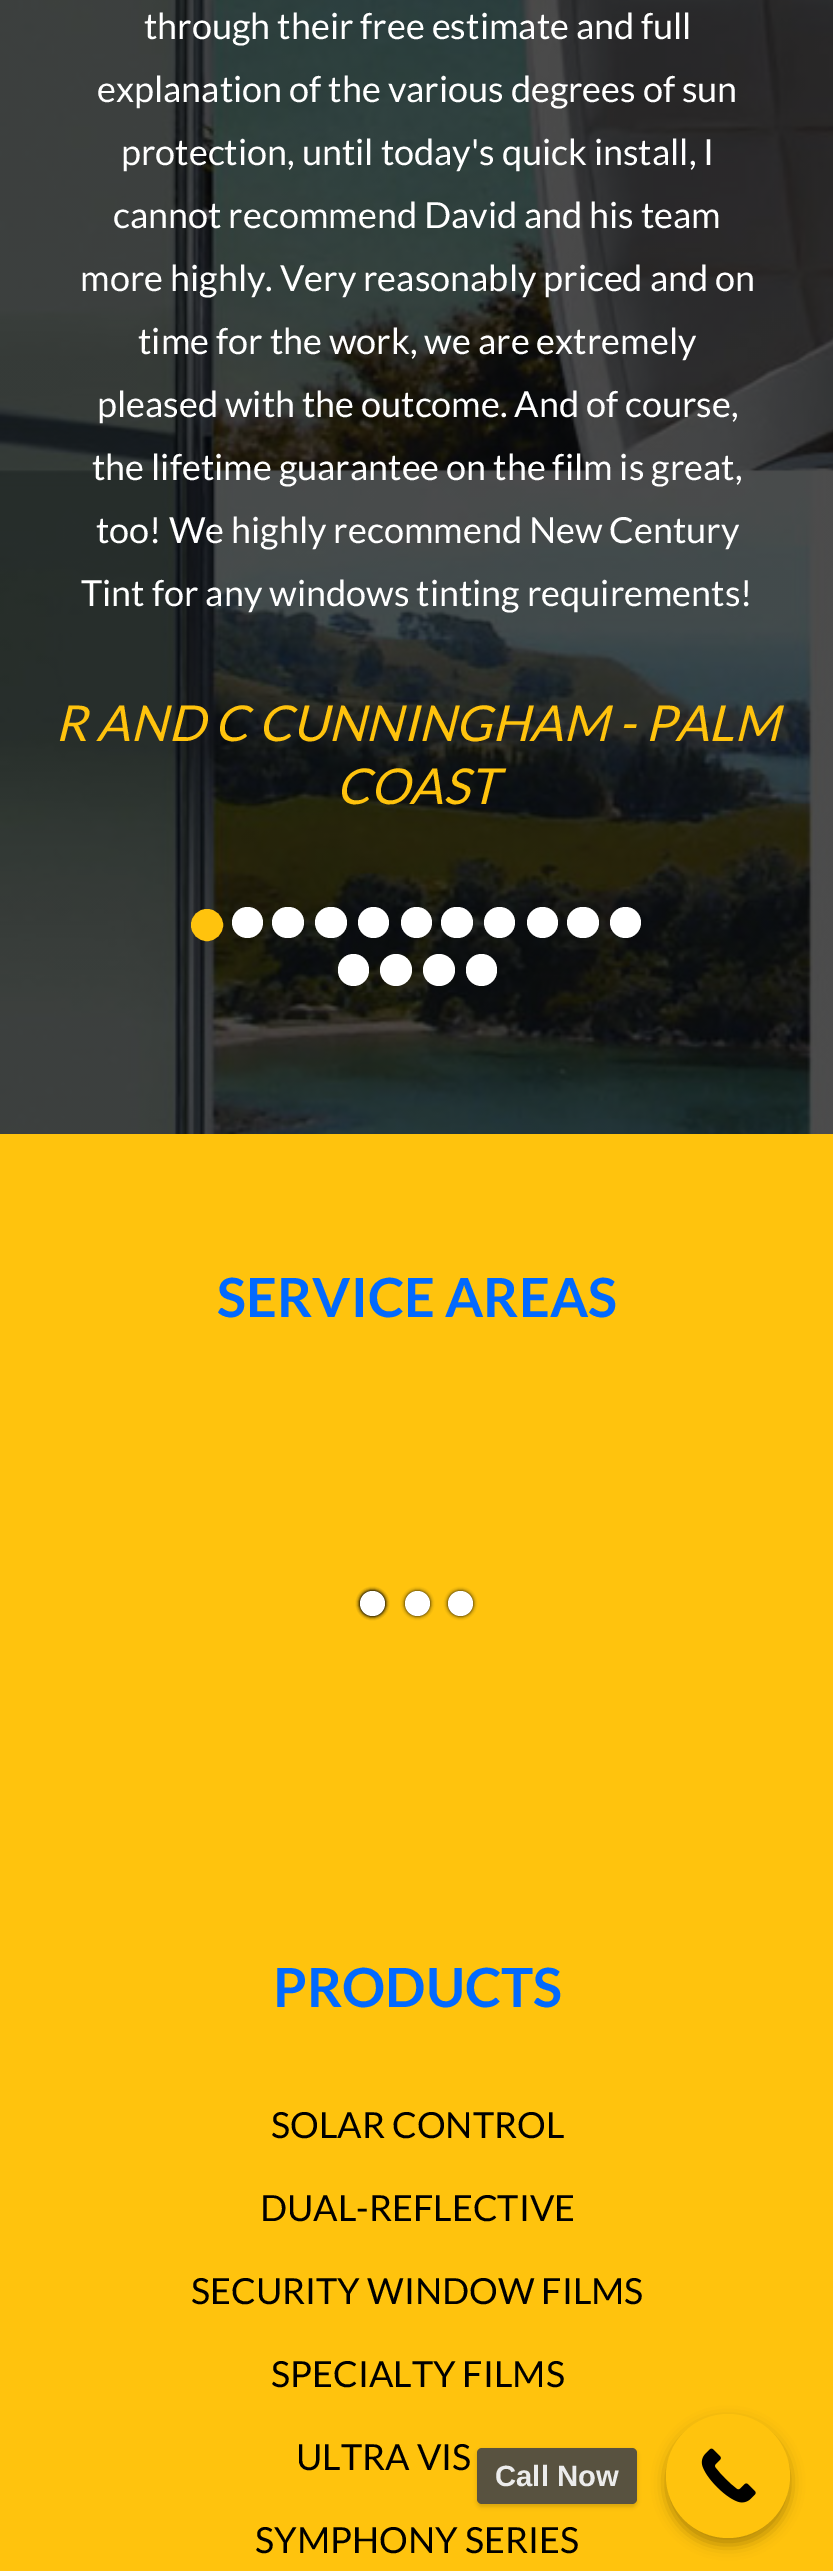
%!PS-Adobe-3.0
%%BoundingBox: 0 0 833 2571
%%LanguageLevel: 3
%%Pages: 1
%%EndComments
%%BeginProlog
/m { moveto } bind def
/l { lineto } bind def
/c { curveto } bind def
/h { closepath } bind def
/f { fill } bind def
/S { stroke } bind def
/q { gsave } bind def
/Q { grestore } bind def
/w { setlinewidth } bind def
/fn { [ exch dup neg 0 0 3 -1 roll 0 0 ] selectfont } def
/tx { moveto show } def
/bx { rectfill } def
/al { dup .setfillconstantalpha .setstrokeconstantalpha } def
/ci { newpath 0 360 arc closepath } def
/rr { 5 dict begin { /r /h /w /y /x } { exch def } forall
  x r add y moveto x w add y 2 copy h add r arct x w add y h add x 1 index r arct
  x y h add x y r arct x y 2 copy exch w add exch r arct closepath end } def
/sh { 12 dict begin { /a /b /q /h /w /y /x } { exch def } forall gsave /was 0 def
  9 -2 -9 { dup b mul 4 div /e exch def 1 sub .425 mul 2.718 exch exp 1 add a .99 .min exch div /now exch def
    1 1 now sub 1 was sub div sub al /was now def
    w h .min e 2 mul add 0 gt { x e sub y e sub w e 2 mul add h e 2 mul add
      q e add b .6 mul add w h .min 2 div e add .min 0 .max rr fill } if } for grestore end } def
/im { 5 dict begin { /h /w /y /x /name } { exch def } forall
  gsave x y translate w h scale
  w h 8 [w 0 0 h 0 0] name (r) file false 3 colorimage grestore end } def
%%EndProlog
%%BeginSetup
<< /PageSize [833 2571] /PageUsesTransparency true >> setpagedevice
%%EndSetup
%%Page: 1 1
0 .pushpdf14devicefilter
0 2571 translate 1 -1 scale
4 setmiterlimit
1 setgray
0 0 833 2571 bx
(image0.raw) 0 0 833 1134 im
/Lato-Regular 36 fn
(through their free estimate and full) 144 39 tx
(explanation of the various degrees of sun) 97 102 tx
(protection, until today's quick install, I) 121 165 tx
(cannot recommend David and his team) 113 228 tx
(more highly. Very reasonably priced and on) 80 291 tx
(time for the work, we are extremely) 138 354 tx
(pleased with the outcome. And of course,) 97 417 tx
(the lifetime guarantee on the film is great,) 92 480 tx
(too! We highly recommend New Century) 96 543 tx
(Tint for any windows tinting requirements!) 81 606 tx
/Lato-Italic 49.5 fn
1 0.765 0.051 setrgbcolor
(R AND C CUNNINGHAM - PALM) 55 741 tx
(COAST) 336 804 tx
207 925 15 ci q f Q
2 w
S
1 setgray
247.5 922.5 15.5 ci f
272 907 32 31 15.5 rr f
315 907 32 31 15.5 rr f
373.5 922.5 15.5 ci f
416.5 922.5 15.5 ci f
441 907 32 31 15.5 rr f
499.5 922.5 15.5 ci f
542.5 922.5 15.5 ci f
567 907 32 31 15.5 rr f
625.5 922.5 15.5 ci f
338 954 31 32 15.5 rr f
396 970 16 ci f
439 970 16 ci f
466 954 31 32 15.5 rr f
1 0.765 0.051 setrgbcolor
0 1134 833 1437 bx
/Lato-Bold 54 fn
0.004 0.412 1 setrgbcolor
(SERVICE AREAS) 217 1317 tx
0 setgray
360 1591 25 25 12.5 2 1 sh
360 1591 25 25 12.5 2 1 sh
1 setgray
372.5 1603.5 12.5 ci f
0 setgray
405 1591 25 25 12.5 2 1 sh
1 setgray
417.5 1603.5 12.5 ci f
0 setgray
448 1591 25 25 12.5 2 1 sh
1 setgray
460.5 1603.5 12.5 ci f
0.004 0.412 1 setrgbcolor
(PRODUCTS) 273 2007 tx
/Lato-Regular 36 fn
0 setgray
(SOLAR CONTROL) 271 2138 tx
(DUAL-REFLECTIVE) 260 2221 tx
(SECURITY WINDOW FILMS) 191 2304 tx
(SPECIALTY FILMS) 271 2387 tx
(ULTRA VIS) 296 2470 tx
(SYMPHONY SERIES) 255 2553 tx
666 2421 124 124 62 7 0.3 sh
1 0.765 0.051 setrgbcolor
728 2476 62 ci f
(image1.raw) 701 2448 55 55 im
q
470 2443 m 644 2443 l 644 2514 l 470 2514 l h 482 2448 m 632 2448 l 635 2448 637 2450 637 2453 c 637 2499 l 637 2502 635 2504 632 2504 c 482 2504 l 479 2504 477 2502 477 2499 c 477 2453 l 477 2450 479 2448 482 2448 c h eoclip newpath
0 setgray
477 2450 160 57 5 2 0.15 sh
Q
0.9 al
0.275 setgray
477 2448 160 56 5 rr f
/LiberationSans-Bold 29.25 fn
1 al
0.925 setgray
(Call Now) 495 2486 tx
.poppdf14devicefilter showpage
%%EOF
